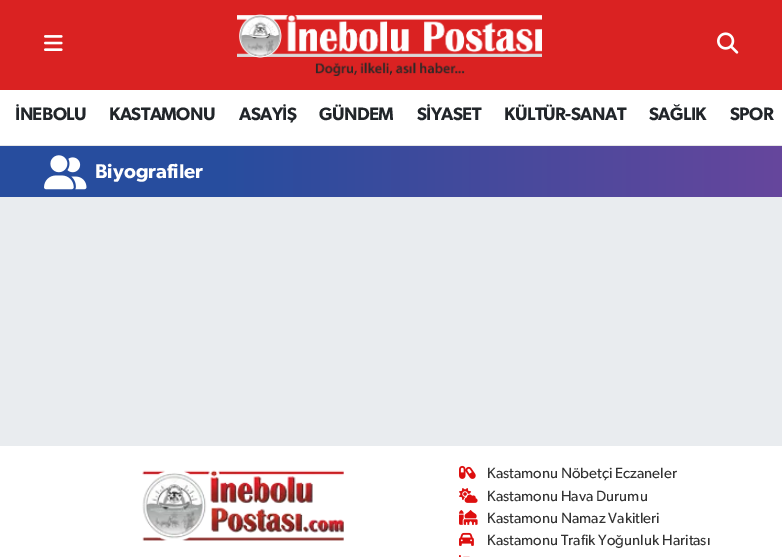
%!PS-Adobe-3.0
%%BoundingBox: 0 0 782 557
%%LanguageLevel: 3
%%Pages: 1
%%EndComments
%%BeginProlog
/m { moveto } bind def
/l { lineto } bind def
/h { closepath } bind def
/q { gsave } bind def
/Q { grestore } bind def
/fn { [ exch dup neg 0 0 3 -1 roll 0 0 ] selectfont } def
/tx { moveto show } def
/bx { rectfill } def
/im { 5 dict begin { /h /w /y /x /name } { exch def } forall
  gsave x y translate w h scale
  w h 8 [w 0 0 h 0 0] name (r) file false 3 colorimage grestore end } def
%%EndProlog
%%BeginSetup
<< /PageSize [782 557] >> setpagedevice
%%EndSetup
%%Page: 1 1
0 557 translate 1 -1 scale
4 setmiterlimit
0.914 0.925 0.937 setrgbcolor
0 0 782 557 bx
0.855 0.133 0.133 setrgbcolor
0 0 782 90 bx
(image0.raw) 44 35 19 16 im
(image1.raw) 237 14 305 62 im
(image2.raw) 717 32 22 22 im
1 setgray
0 90 782 55 bx
0.902 setgray
0 145 782 1 bx
/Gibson-SemiBold 18 fn
0.129 0.145 0.161 setrgbcolor
15 120 m -0.6 0 (İNEBOLU) ashow
109 120 m -0.6 0 (KASTAMONU) ashow
239 120 m -0.6 0 (ASAYİŞ) ashow
319 120 m -0.6 0 (GÜNDEM) ashow
417 120 m -0.6 0 (SİYASET) ashow
504 120 m -0.6 0 (KÜLTÜR-SANAT) ashow
649 120 m -0.6 0 (SAĞLIK) ashow
730 120 m -0.6 0 (SPOR) ashow
q 0 146 m 782 146 l 782 197 l 0 197 l h clip newpath
<< /ShadingType 2 /ColorSpace /DeviceRGB /Coords [782 171 0 172] /Extend [true true] /Function << /FunctionType 3 /Domain [0 1] /Functions [<< /FunctionType 2 /Domain [0 1] /C0 [0.4 0.275 0.612] /C1 [0.153 0.302 0.62] /N 1 >> << /FunctionType 2 /Domain [0 1] /C0 [0.153 0.302 0.62] /C1 [0.153 0.302 0.62] /N 1 >>] /Bounds [0.72] /Encode [0 1 0 1] >> >> shfill Q
(image3.raw) 44 155 43 35 im
/Gibson-SemiBold 20 fn
1 setgray
(Biyografiler) 95 178 tx
0 446 782 111 bx
(image4.raw) 142 470 202 71 im
(image5.raw) 459 465 17 14 im
/Gibson-Regular 14.9 fn
0.2 setgray
(Kastamonu Nöbetçi Eczaneler) 487 478 tx
(image6.raw) 459 488 19 15 im
(Kastamonu Hava Durumu) 487 501 tx
(image7.raw) 459 510 19 15 im
(Kastamonu Namaz Vakitleri) 487 523 tx
(image8.raw) 459 532 15 14 im
(Kastamonu Trafik Yoğunluk Haritası) 487 545 tx
(image9.raw) 459 555 11 2 im
showpage
%%EOF
